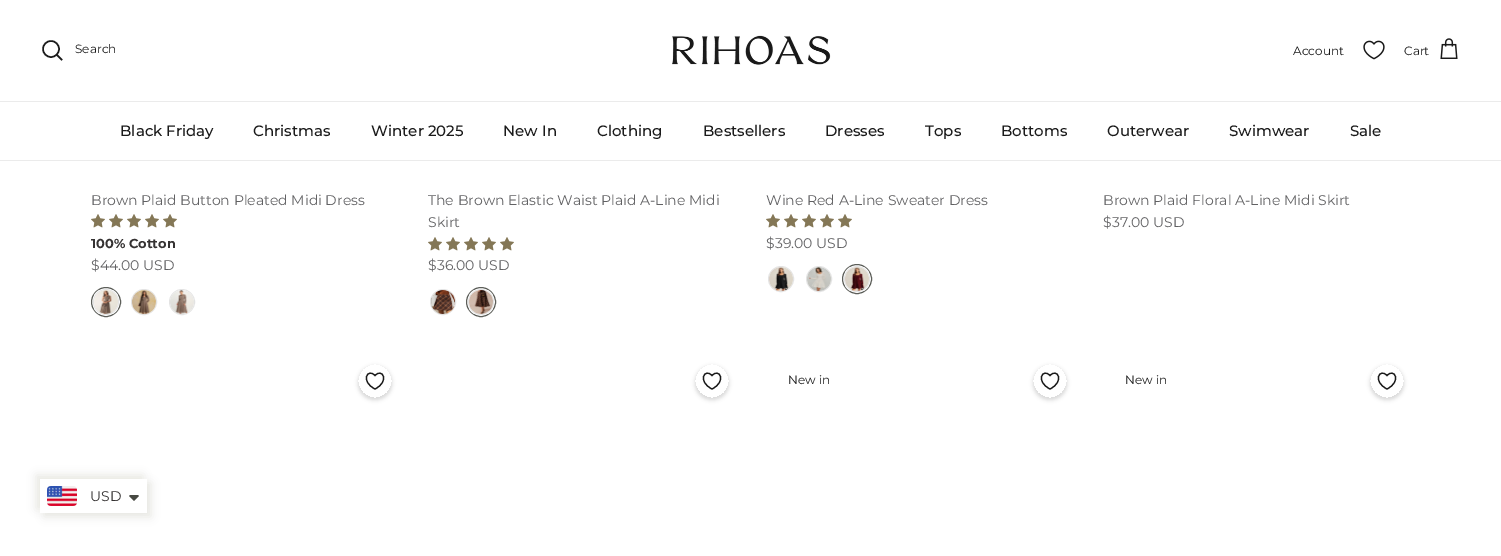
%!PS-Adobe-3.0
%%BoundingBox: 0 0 1501 556
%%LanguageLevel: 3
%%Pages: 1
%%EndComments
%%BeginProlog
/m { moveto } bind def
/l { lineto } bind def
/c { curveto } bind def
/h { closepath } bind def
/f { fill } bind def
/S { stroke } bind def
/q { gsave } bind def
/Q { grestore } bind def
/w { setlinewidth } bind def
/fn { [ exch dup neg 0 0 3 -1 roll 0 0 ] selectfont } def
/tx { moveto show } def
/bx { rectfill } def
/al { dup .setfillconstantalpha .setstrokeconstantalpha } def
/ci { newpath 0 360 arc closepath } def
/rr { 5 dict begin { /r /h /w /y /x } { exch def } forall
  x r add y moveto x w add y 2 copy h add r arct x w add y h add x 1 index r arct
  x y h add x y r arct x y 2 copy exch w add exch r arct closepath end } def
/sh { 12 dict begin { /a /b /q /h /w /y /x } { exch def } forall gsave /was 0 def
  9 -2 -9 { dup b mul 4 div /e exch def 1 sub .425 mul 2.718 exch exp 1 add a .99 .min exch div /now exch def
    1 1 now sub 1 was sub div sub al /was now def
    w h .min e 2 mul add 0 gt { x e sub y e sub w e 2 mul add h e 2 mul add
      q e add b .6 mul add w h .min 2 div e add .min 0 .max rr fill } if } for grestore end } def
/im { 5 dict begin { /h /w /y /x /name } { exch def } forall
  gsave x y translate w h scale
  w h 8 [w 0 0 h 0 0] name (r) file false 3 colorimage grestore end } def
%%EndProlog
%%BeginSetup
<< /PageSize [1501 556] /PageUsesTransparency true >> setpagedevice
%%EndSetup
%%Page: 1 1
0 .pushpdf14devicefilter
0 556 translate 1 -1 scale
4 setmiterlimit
1 setgray
0 0 1501 556 bx
0.922 setgray
0 101 1501 1 bx
0.102 setgray
1.5 w
51 49 8 ci S
/Montserrat-Regular 12 fn
(Search) 75 53 tx
2 setlinecap
57 55 m 61.5 59.5 l S
(image0.raw) 672 35 159 30 im
(Account) 1293 55 tx
(image1.raw) 1363 40 22 20 im
(Cart) 1404 55 tx
(image2.raw) 1440 38 18 21 im
0.922 setgray
0 160 1501 1 bx
/Montserrat-Medium 15 fn
0.102 setgray
(Black Friday) 120 136 tx
(Christmas) 253 136 tx
(Winter 2025) 371 136 tx
(New In) 503 136 tx
(Clothing) 597 136 tx
(Bestsellers) 703 136 tx
(Dresses) 825 136 tx
(Tops) 925 136 tx
(Bottoms) 1001 136 tx
(Outerwear) 1107 136 tx
(Swimwear) 1229 136 tx
(Sale) 1350 136 tx
/Montserrat-Regular 14 fn
0.38 0.38 0.388 setrgbcolor
(Brown Plaid Button Pleated Midi Dress) 91 205 tx
(image3.raw) 91 214 14 14 im
(image3.raw) 109 214 14 14 im
(image3.raw) 127 214 14 14 im
(image3.raw) 145 214 14 14 im
(image3.raw) 163 214 14 14 im
/Montserrat-Bold 13 fn
0.208 0.196 0.196 setrgbcolor
(100% Cotton) 91 248 tx
/Montserrat-Regular 14 fn
0.38 0.38 0.388 setrgbcolor
($44.00 USD) 91 270 tx
0.365 0.373 0.353 setrgbcolor
1 w
0 setlinecap
106 302 14.5 ci S
0.89 setgray
106 302 12.5 ci S
(image4.raw) 94 290 24 24 im
144 302 12.5 ci S
(image5.raw) 132 290 24 24 im
182 302 12.5 ci S
(image6.raw) 170 290 24 24 im
0.38 0.38 0.388 setrgbcolor
(The Brown Elastic Waist Plaid A-Line Midi) 428 205 tx
(Skirt) 428 227 tx
(image3.raw) 428 237 14 14 im
(image3.raw) 446 237 14 14 im
(image3.raw) 464 237 14 14 im
(image3.raw) 482 237 14 14 im
(image3.raw) 500 237 14 14 im
($36.00 USD) 428 270 tx
0.89 setgray
443 302 12.5 ci S
(image7.raw) 431 290 24 24 im
0.365 0.373 0.353 setrgbcolor
481 302 14.5 ci S
0.89 setgray
481 302 12.5 ci S
(image8.raw) 469 290 24 24 im
0.38 0.38 0.388 setrgbcolor
(Wine Red A-Line Sweater Dress) 766 205 tx
(image3.raw) 766 214 14 14 im
(image3.raw) 784 214 14 14 im
(image3.raw) 802 214 14 14 im
(image3.raw) 820 214 14 14 im
(image3.raw) 838 214 14 14 im
($39.00 USD) 766 248 tx
0.89 setgray
781 279 12.5 ci S
(image9.raw) 769 267 24 24 im
819 279 12.5 ci S
(image10.raw) 807 267 24 24 im
0.365 0.373 0.353 setrgbcolor
857 279 14.5 ci S
0.89 setgray
857 279 12.5 ci S
(image11.raw) 845 267 24 24 im
0.38 0.38 0.388 setrgbcolor
(Brown Plaid Floral A-Line Midi Skirt) 1103 205 tx
($37.00 USD) 1103 227 tx
q
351 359 m 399 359 l 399 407 l 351 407 l h 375 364 m 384.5 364 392 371.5 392 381 c 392 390.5 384.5 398 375 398 c 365.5 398 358 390.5 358 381 c 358 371.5 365.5 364 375 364 c h eoclip newpath
0 setgray
358 366 34 34 17 2 0.15 sh
Q
0.102 setgray
1.2 w
375 389 m 360 381.5 367.5 367.5 375 375.5 c 382.5 367.5 390 381.5 375 389 c h S
q
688 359 m 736 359 l 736 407 l 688 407 l h 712 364 m 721.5 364 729 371.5 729 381 c 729 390.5 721.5 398 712 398 c 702.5 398 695 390.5 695 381 c 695 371.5 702.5 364 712 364 c h eoclip newpath
0 setgray
695 366 34 34 17 2 0.15 sh
Q
712 389 m 697 381.5 704.5 367.5 712 375.5 c 719.5 367.5 727 381.5 712 389 c h S
/Montserrat-Regular 12 fn
(New in) 788 384 tx
q
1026 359 m 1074 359 l 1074 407 l 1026 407 l h 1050 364 m 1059.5 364 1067 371.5 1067 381 c 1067 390.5 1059.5 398 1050 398 c 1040.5 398 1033 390.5 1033 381 c 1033 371.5 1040.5 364 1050 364 c h eoclip newpath
0 setgray
1033 366 34 34 17 2 0.15 sh
Q
1050 389 m 1035 381.5 1042.5 367.5 1050 375.5 c 1057.5 367.5 1065 381.5 1050 389 c h S
(New in) 1125 384 tx
q
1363 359 m 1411 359 l 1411 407 l 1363 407 l h 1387 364 m 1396.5 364 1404 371.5 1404 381 c 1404 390.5 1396.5 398 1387 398 c 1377.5 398 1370 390.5 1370 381 c 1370 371.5 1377.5 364 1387 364 c h eoclip newpath
0 setgray
1370 366 34 34 17 2 0.15 sh
Q
1387 389 m 1372 381.5 1379.5 367.5 1387 375.5 c 1394.5 367.5 1402 381.5 1387 389 c h S
q
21 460 m 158 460 l 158 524 l 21 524 l h 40 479 m 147 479 l 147 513 l 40 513 l h eoclip newpath
0.91 0.91 0.886 setrgbcolor
36 475 107 34 0 4.5 1 sh
Q
q
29 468 m 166 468 l 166 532 l 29 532 l h 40 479 m 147 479 l 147 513 l 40 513 l h eoclip newpath
0.91 0.91 0.886 setrgbcolor
44 483 107 34 0 4.5 1 sh
Q
(image12.raw) 47 486 30 20 im
/Montserrat-Regular 14 fn
0.208 0.196 0.196 setrgbcolor
(USD) 90 501 tx
0.278 0.286 0.259 setrgbcolor
131 495 m 130 495 129.5 495.5 129 496 c 134 501 l 139 496 l 138 495 l h f
.poppdf14devicefilter showpage
%%EOF
